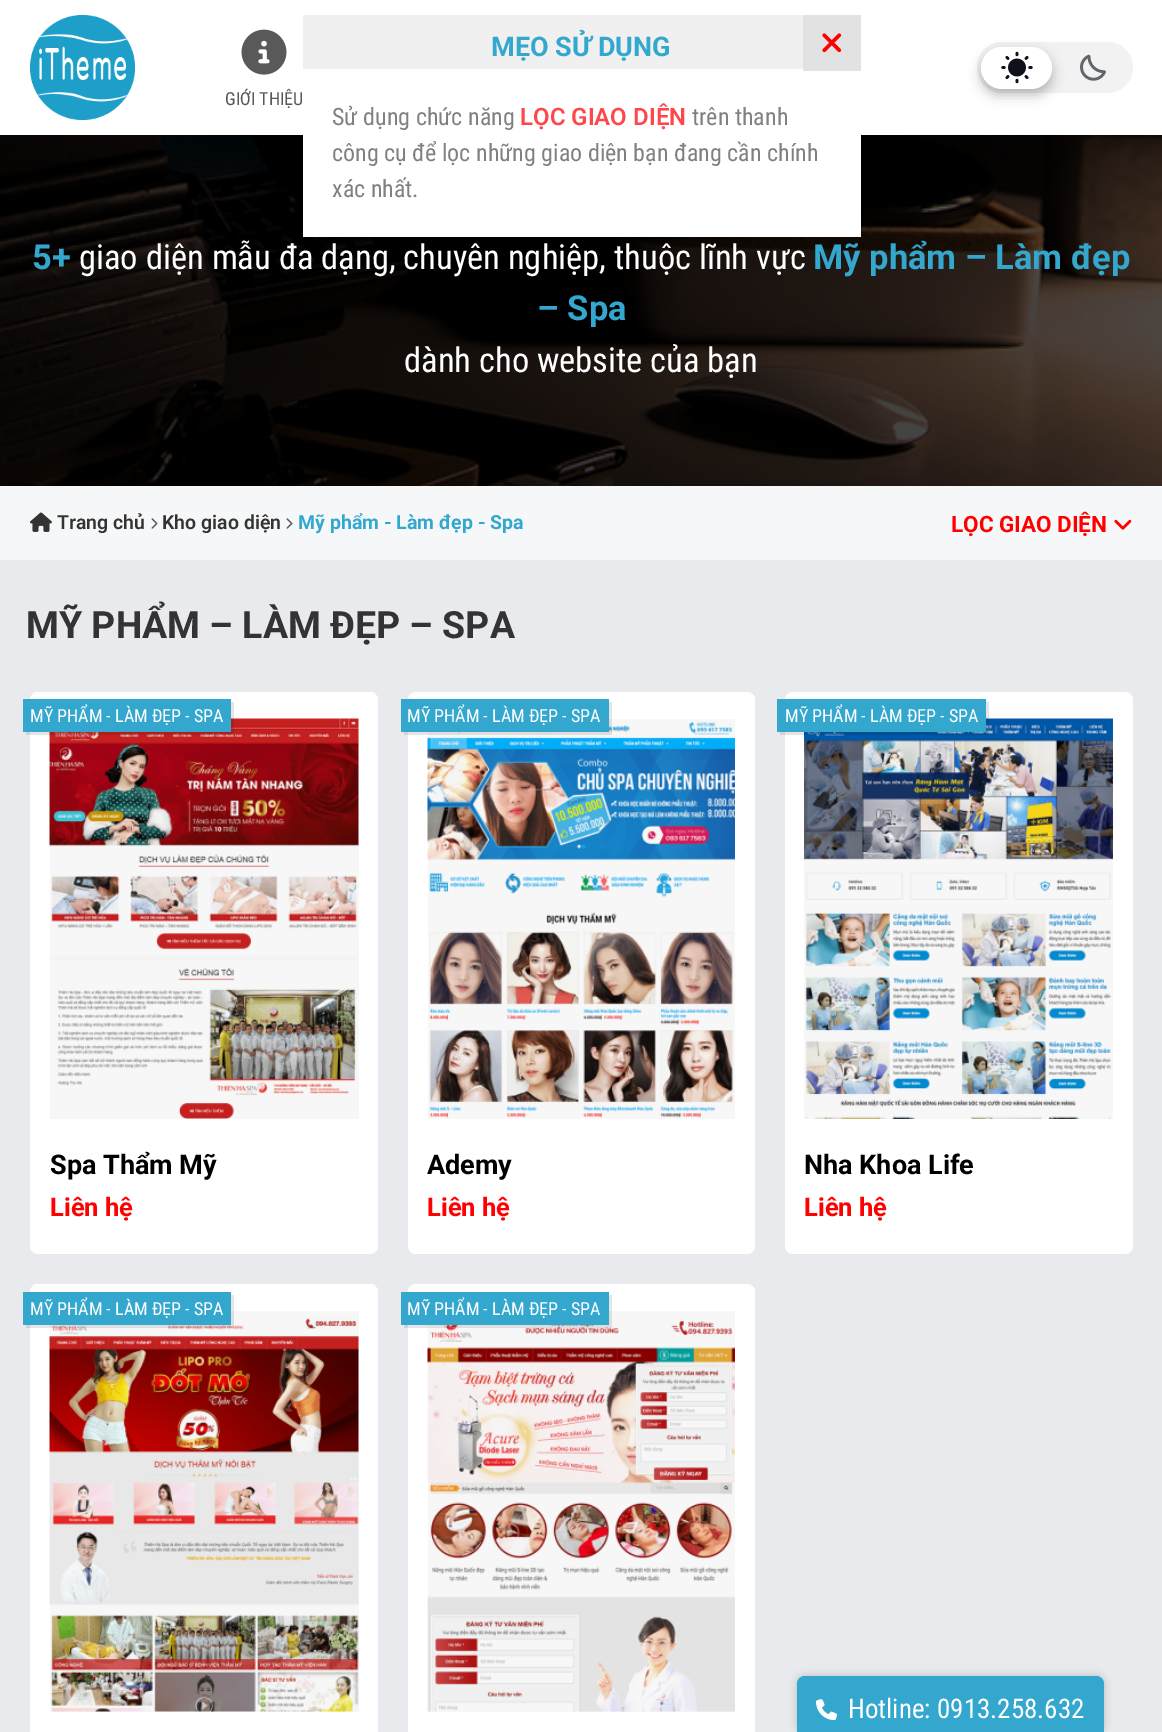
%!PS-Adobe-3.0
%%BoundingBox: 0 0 1162 1732
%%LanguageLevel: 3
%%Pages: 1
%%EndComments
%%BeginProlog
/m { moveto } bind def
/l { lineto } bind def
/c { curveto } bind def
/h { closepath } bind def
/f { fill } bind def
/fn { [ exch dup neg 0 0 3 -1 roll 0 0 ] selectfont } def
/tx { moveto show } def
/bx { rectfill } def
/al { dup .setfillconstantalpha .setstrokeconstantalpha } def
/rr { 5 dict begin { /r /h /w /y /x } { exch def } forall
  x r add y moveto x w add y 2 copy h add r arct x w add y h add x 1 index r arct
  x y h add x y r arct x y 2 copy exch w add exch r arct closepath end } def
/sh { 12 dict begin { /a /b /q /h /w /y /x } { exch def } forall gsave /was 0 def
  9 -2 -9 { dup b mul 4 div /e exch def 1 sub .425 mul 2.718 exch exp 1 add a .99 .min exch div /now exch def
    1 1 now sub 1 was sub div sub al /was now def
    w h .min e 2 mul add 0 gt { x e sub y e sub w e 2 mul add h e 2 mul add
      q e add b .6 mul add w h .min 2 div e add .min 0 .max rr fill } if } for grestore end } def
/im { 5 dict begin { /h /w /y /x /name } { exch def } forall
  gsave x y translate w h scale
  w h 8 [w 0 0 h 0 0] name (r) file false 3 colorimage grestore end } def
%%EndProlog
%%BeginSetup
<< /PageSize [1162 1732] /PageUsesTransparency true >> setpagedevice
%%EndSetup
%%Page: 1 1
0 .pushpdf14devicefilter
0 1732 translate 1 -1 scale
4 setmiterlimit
0.914 0.918 0.929 setrgbcolor
0 0 1162 1732 bx
(image5.raw) 0 135 1162 351 im
0.004 0.008 0.008 setrgbcolor
3 5 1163 135 0 2 0.18 sh
1 setgray
0 0 1162 135 bx
(image0.raw) 30 15 105 105 im
(image1.raw) 241 29 46 46 im
/RobotoCondensed-Regular 18 fn
0.349 setgray
(GIỚI THIỆU) 225 105 tx
0.949 setgray
977 42 156 51 25.5 rr f
0 setgray
981 53 71 42 21 6 0.25 sh
1 setgray
981 47 71 42 21 rr f
(image2.raw) 1001 51 32 33 im
(image3.raw) 1080 54 26 27 im
303 135 558 102 bx
0.941 setgray
303 15 500 54 bx
/Roboto-Bold 27 fn
0.2 0.655 0.808 setrgbcolor
(MẸO SỬ DỤNG) 491 56 tx
0.886 setgray
803 15 58 56 bx
(image4.raw) 822 33 20 20 im
/RobotoCondensed-Regular 24 fn
0.502 setgray
(Sử dụng chức năng) 332 125 tx
/Roboto-SemiBold 24 fn
1 0.275 0.294 setrgbcolor
(LỌC GIAO DIỆN) 520 125 tx
/RobotoCondensed-Regular 24 fn
0.502 setgray
(trên thanh) 692 125 tx
(công cụ để lọc những giao diện bạn đang cần chính) 332 161 tx
(xác nhất.) 332 197 tx
/Roboto-Bold 34.5 fn
0.2 0.655 0.808 setrgbcolor
(5+) 32 269 tx
/RobotoCondensed-Regular 34.5 fn
1 setgray
(giao diện mẫu đa dạng, chuyên nghiệp, thuộc lĩnh vực) 79 269 tx
/Roboto-Bold 34.5 fn
0.2 0.655 0.808 setrgbcolor
(Mỹ phẩm – Làm đẹp) 813 269 tx
(– Spa) 537 320 tx
/RobotoCondensed-Regular 34.5 fn
1 setgray
(dành cho website của bạn) 404 372 tx
0.965 0.969 0.973 setrgbcolor
0 486 1162 74 bx
(image6.raw) 30 512 22 20 im
/Roboto-SemiBold 19.5 fn
0.2 setgray
(Trang chủ) 57 529 tx
(image7.raw) 151 518 7 11 im
(Kho giao diện) 162 529 tx
(image7.raw) 286 518 7 11 im
/Roboto-Bold 19.5 fn
0.2 0.655 0.808 setrgbcolor
(Mỹ phẩm - Làm đẹp - Spa) 298 529 tx
/Roboto-Bold 22.5 fn
1 0 0 setrgbcolor
(LỌC GIAO DIỆN) 951 532 tx
(image8.raw) 1114 519 18 11 im
/Roboto-Bold 37.5 fn
0.2 setgray
(MỸ PHẨM – LÀM ĐẸP – SPA) 26 638 tx
1 setgray
30 692 348 562 8 rr f
0.969 setgray
50 719 309 400 bx
(image9.raw) 49 718 310 401 im
0.1 al
0 setgray
26 732 m 26 735 l 234 735 l 234 702 l 231 702 l 231 732 l h f
1 al
0.2 0.655 0.808 setrgbcolor
23 699 208 33 bx
/RobotoCondensed-Regular 18 fn
1 setgray
(MỸ PHẨM - LÀM ĐẸP - SPA) 30 722 tx
/Roboto-Bold 27 fn
0 setgray
(Spa Thẩm Mỹ) 50 1174 tx
/Roboto-Bold 25.5 fn
1 0 0 setrgbcolor
(Liên hệ) 50 1216 tx
1 setgray
408 692 347 562 8 rr f
0.969 setgray
428 719 307 400 bx
(image10.raw) 427 721 308 397 im
0.1 al
0 setgray
404 732 m 404 735 l 612 735 l 612 702 l 609 702 l 609 732 l h f
1 al
0.2 0.655 0.808 setrgbcolor
401 699 208 33 bx
/RobotoCondensed-Regular 18 fn
1 setgray
(MỸ PHẨM - LÀM ĐẸP - SPA) 407 722 tx
/Roboto-Bold 27 fn
0 setgray
(Ademy) 427 1174 tx
/Roboto-Bold 25.5 fn
1 0 0 setrgbcolor
(Liên hệ) 427 1216 tx
1 setgray
785 692 348 562 8 rr f
(image11.raw) 804 718 309 401 im
0.1 al
0 setgray
780 732 m 780 735 l 989 735 l 989 702 l 986 702 l 986 732 l h f
1 al
0.2 0.655 0.808 setrgbcolor
777 699 209 33 bx
/RobotoCondensed-Regular 18 fn
1 setgray
(MỸ PHẨM - LÀM ĐẸP - SPA) 785 722 tx
/Roboto-Bold 27 fn
0 setgray
(Nha Khoa Life) 804 1174 tx
/Roboto-Bold 25.5 fn
1 0 0 setrgbcolor
(Liên hệ) 804 1216 tx
1 setgray
30 1284 348 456 8 rr f
0.969 setgray
50 1311 309 401 bx
(image12.raw) 49 1312 310 400 im
0.1 al
0 setgray
26 1324 m 26 1328 l 234 1328 l 234 1295 l 231 1295 l 231 1324 l h f
1 al
0.2 0.655 0.808 setrgbcolor
23 1292 208 33 bx
/RobotoCondensed-Regular 18 fn
1 setgray
(MỸ PHẨM - LÀM ĐẸP - SPA) 30 1315 tx
408 1284 347 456 8 rr f
0.969 setgray
428 1311 307 401 bx
(image13.raw) 427 1315 308 397 im
0.1 al
0 setgray
404 1324 m 404 1328 l 612 1328 l 612 1295 l 609 1295 l 609 1324 l h f
1 al
0.2 0.655 0.808 setrgbcolor
401 1292 208 33 bx
1 setgray
(MỸ PHẨM - LÀM ĐẸP - SPA) 407 1315 tx
0 setgray
797 1676 307 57 8 4 0.2 sh
0.2 0.655 0.808 setrgbcolor
805 1676 m 1096 1676 l 1100.5 1676 1104 1679.5 1104 1684 c 1104 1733 l 797 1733 l 797 1684 l 797 1679.5 800.5 1676 805 1676 c h f
(image14.raw) 816 1699 21 22 im
/RobotoCondensed-Regular 27 fn
1 setgray
(Hotline: 0913.258.632) 848 1718 tx
.poppdf14devicefilter showpage
%%EOF
